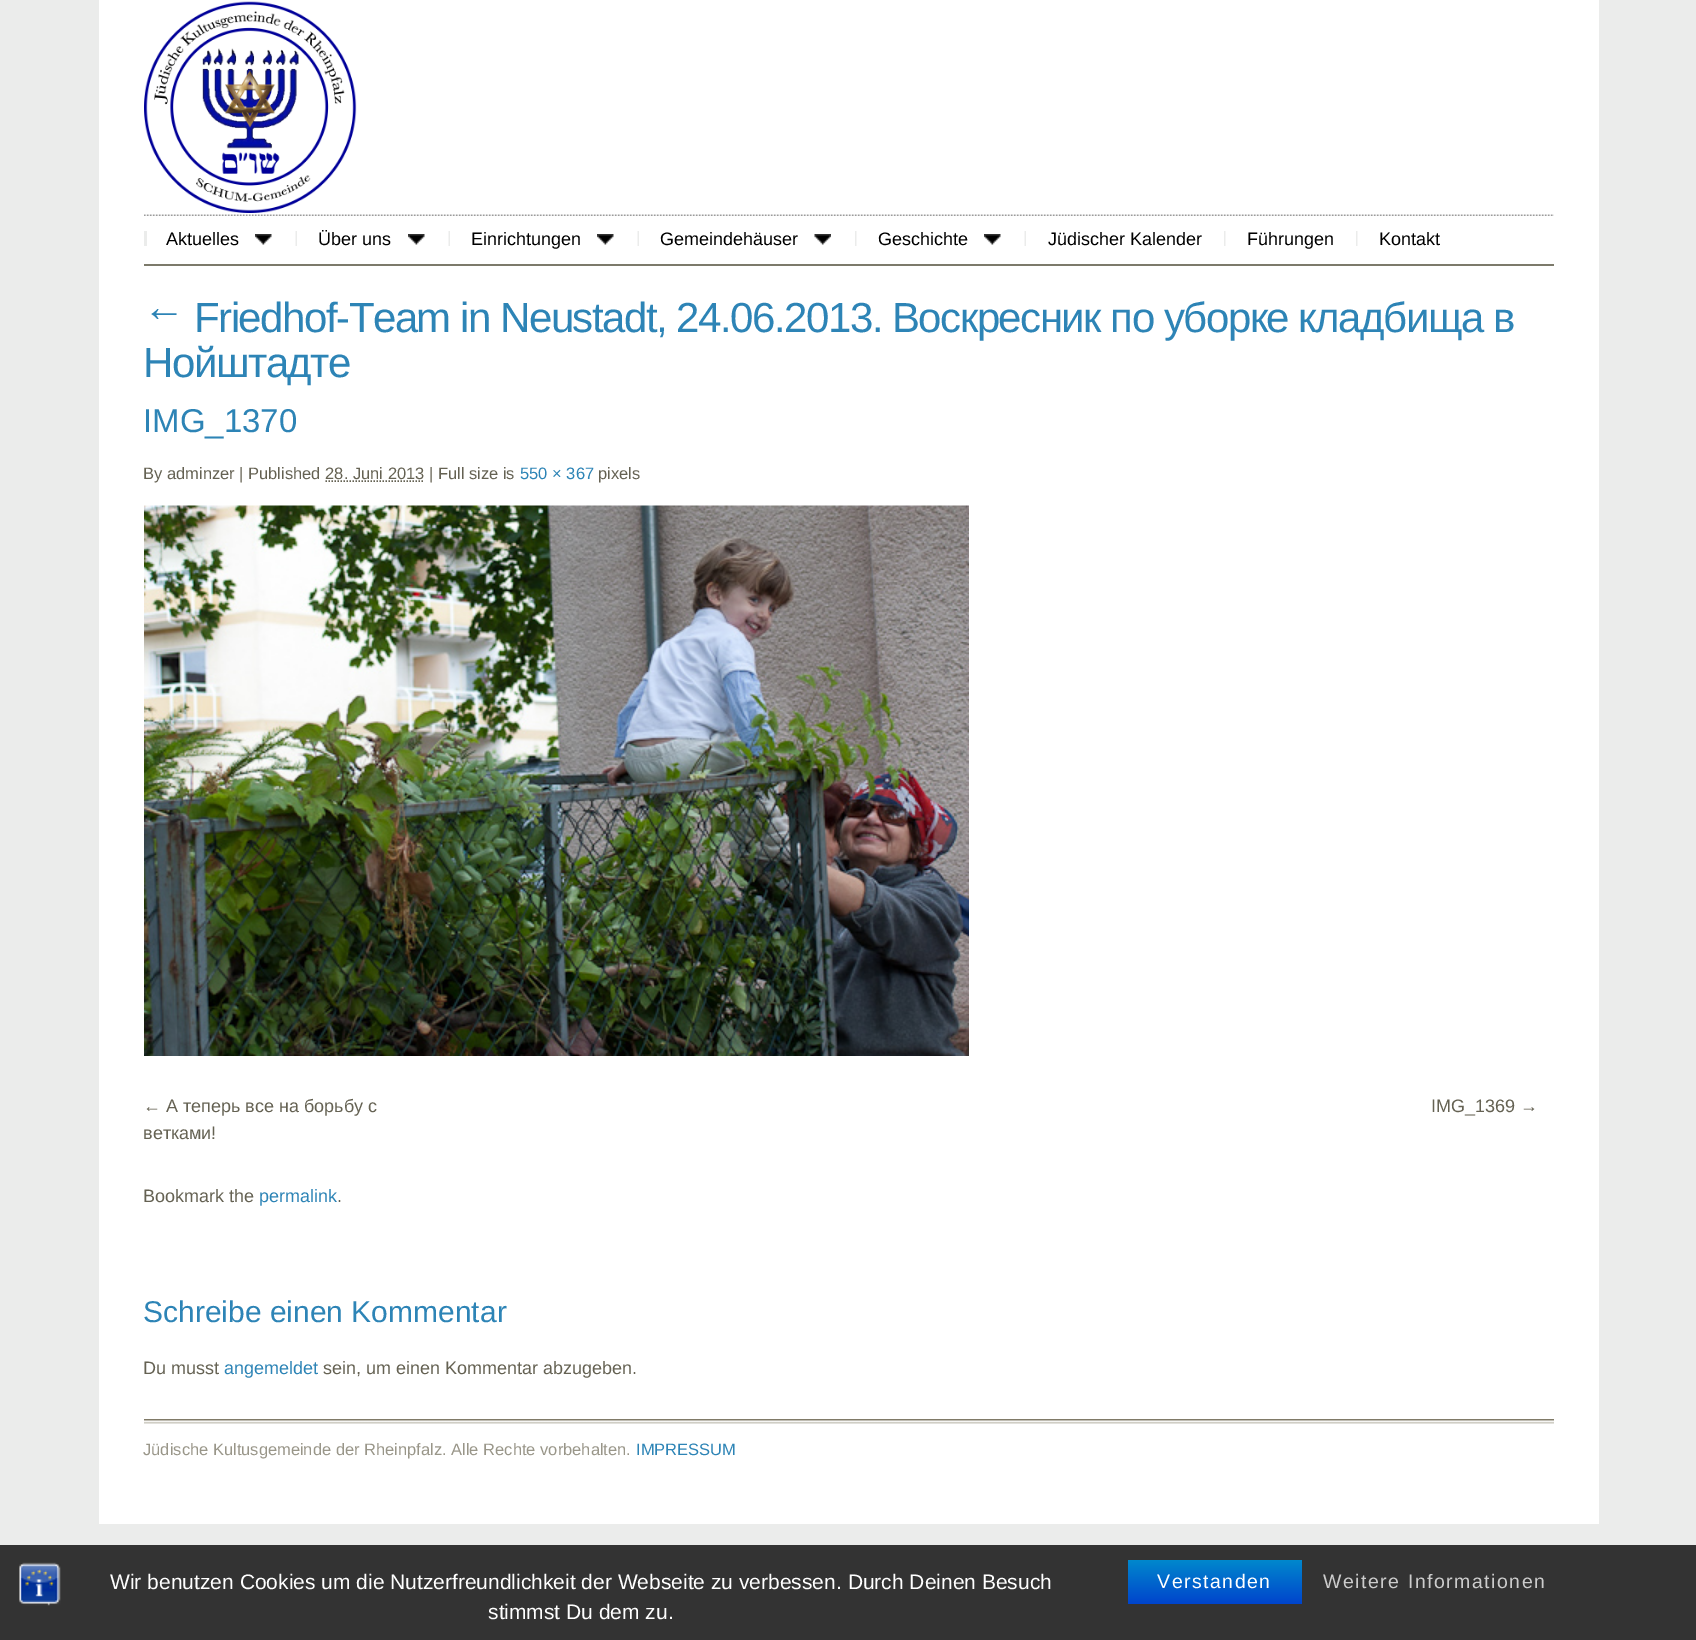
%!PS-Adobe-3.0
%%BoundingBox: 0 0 1696 1640
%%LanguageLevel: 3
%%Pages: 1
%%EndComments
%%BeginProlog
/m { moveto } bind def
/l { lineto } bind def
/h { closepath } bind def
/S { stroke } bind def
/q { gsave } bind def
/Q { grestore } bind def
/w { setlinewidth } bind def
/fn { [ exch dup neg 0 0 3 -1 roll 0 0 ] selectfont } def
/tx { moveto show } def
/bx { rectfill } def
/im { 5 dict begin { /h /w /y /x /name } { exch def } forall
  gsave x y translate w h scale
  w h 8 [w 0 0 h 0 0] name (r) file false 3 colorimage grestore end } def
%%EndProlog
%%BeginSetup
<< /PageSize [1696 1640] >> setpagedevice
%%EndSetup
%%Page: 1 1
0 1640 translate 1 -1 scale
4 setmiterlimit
0.922 0.925 0.922 setrgbcolor
0 0 1696 1640 bx
1 setgray
99 0 1500 1524 bx
(image0.raw) 144 1 213 212 im
(image1.raw) 144 214 1410 2 im
0.486 0.478 0.42 setrgbcolor
144 264 1410 2 bx
0.922 0.925 0.922 setrgbcolor
144 231 3 15 bx
/LiberationSans-Regular 18 fn
0 setgray
(Aktuelles) 166 245 tx
(image2.raw) 255 234 17 11 im
(image3.raw) 295 231 2 15 im
(Über uns) 318 245 tx
(image4.raw) 408 234 17 11 im
(image3.raw) 448 231 2 15 im
(Einrichtungen) 471 245 tx
(image4.raw) 597 234 17 11 im
(image3.raw) 637 231 2 15 im
(Gemeindehäuser) 660 245 tx
(image5.raw) 814 234 17 11 im
(image6.raw) 855 231 2 15 im
(Geschichte) 878 245 tx
(image2.raw) 984 234 17 11 im
(image3.raw) 1024 231 2 15 im
(Jüdischer Kalender) 1048 245 tx
(image6.raw) 1224 231 2 15 im
(Führungen) 1247 245 tx
(image6.raw) 1356 231 2 15 im
(Kontakt) 1379 245 tx
/LiberationSans-Regular 42 fn
0.176 0.518 0.714 setrgbcolor
143 321 m -1.5 0 (←) ashow
194 332 m -1.5 0 (Friedhof-Team in Neustadt, 24.06.2013. Воскресник по уборке кладбища в) ashow
143 377 m -1.5 0 (Нойштадте) ashow
/LiberationSans-Regular 33 fn
(IMG_1370) 143 432 tx
/LiberationSans-Regular 16.5 fn
0.396 0.384 0.325 setrgbcolor
(By adminzer | Published 28. Juni 2013 | Full size is) 143 479 tx
0.176 0.518 0.714 setrgbcolor
(550 × 367) 520 479 tx
0.396 0.384 0.325 setrgbcolor
(pixels) 598 479 tx
1.5 w
[1.5 1.5] 0 setdash
325.5 481 m 424.5 481 l S
(image7.raw) 144 505 825 551 im
/LiberationSans-Regular 18 fn
(← А теперь все на борьбу с) 143 1112 tx
(ветками!) 143 1139 tx
(IMG_1369 →) 1431 1112 tx
(Bookmark the) 143 1202 tx
0.176 0.518 0.714 setrgbcolor
(permalink) 259 1202 tx
0.396 0.384 0.325 setrgbcolor
(.) 337 1202 tx
/LiberationSans-Regular 30 fn
0.176 0.518 0.714 setrgbcolor
(Schreibe einen Kommentar) 143 1322 tx
/LiberationSans-Regular 18 fn
0.396 0.384 0.325 setrgbcolor
(Du musst) 143 1374 tx
0.176 0.518 0.714 setrgbcolor
(angemeldet) 224 1374 tx
0.396 0.384 0.325 setrgbcolor
(sein, um einen Kommentar abzugeben.) 323 1374 tx
(image8.raw) 144 1419 1410 5 im
/LiberationSans-Regular 16.5 fn
0.6 0.588 0.537 setrgbcolor
(Jüdische Kultusgemeinde der Rheinpfalz. Alle Rechte vorbehalten.) 143 1455 tx
0.176 0.518 0.714 setrgbcolor
(IMPRESSUM) 636 1455 tx
0.2 setgray
0 1545 1696 95 bx
(image9.raw) 19 1562 42 44 im
/LiberationSans-Regular 21 fn
1 setgray
(Wir benutzen Cookies um die Nutzerfreundlichkeit der Webseite zu verbessen. Durch Deinen Besuch) 110 1589 tx
(stimmst Du dem zu.) 488 1619 tx
q 1128 1560 m 1302 1560 l 1302 1604 l 1128 1604 l h clip newpath
<< /ShadingType 2 /ColorSpace /DeviceRGB /Coords [1215 1560 1215 1604] /Extend [true true] /Function << /FunctionType 2 /Domain [0 1] /C0 [0 0.533 0.8] /C1 [0 0.267 0.8] /N 1 >> >> shfill Q
/LiberationSans-Regular 19.5 fn
1157 1588 m 1.5 0 (Verstanden) ashow
0.8 setgray
1323 1588 m 1.5 0 (Weitere Informationen) ashow
showpage
%%EOF
